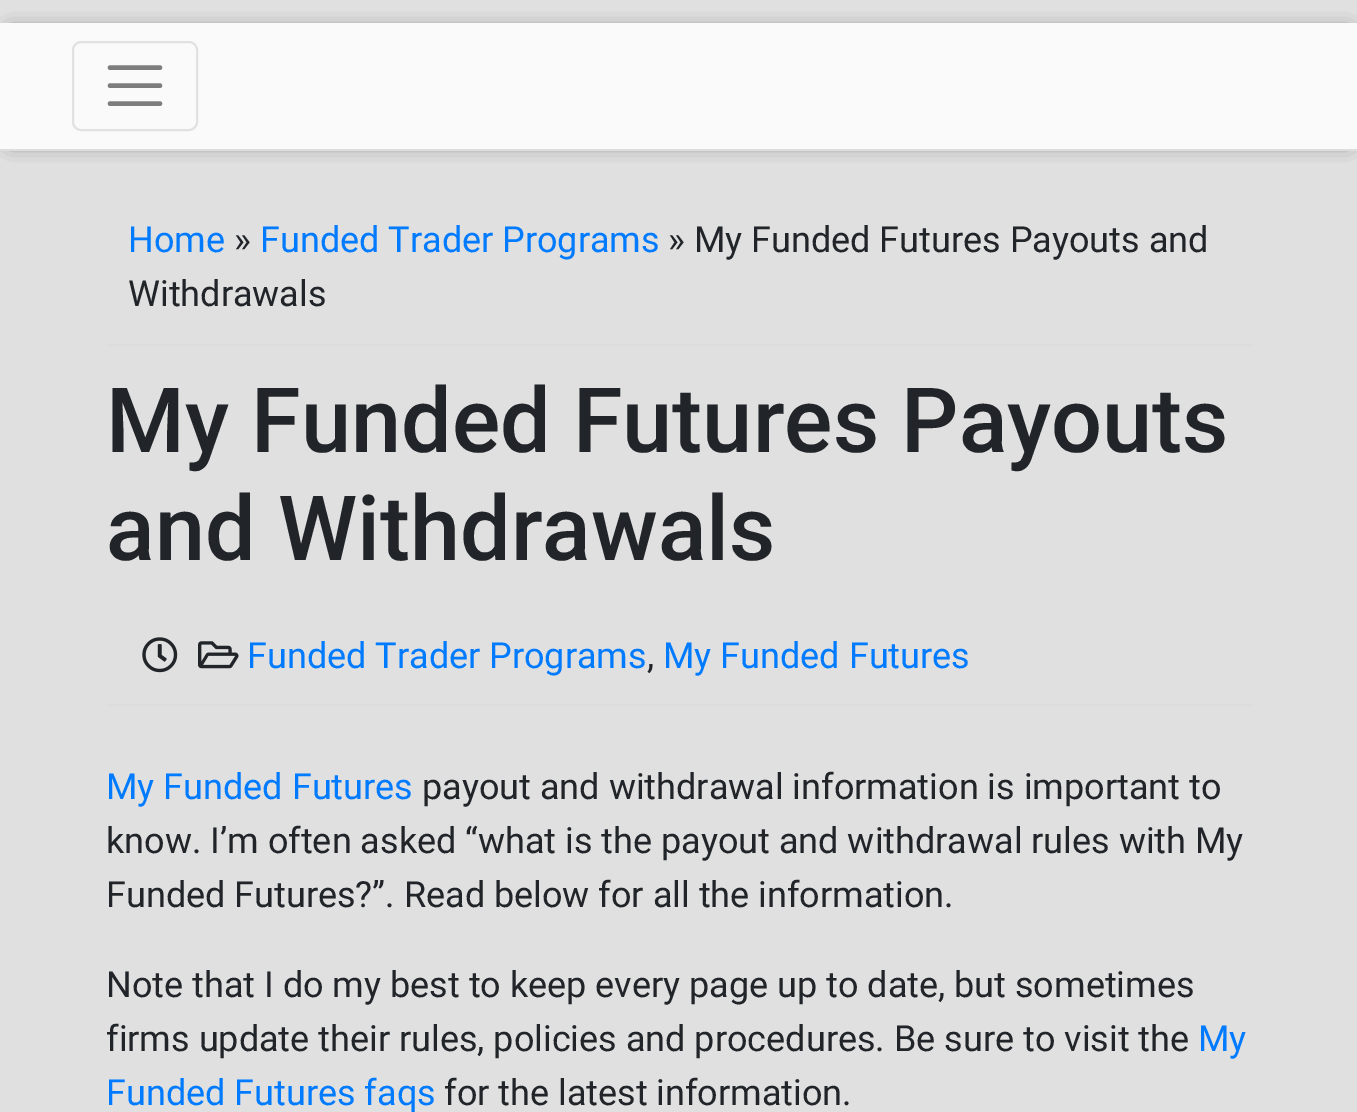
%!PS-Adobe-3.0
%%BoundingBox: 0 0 1357 1112
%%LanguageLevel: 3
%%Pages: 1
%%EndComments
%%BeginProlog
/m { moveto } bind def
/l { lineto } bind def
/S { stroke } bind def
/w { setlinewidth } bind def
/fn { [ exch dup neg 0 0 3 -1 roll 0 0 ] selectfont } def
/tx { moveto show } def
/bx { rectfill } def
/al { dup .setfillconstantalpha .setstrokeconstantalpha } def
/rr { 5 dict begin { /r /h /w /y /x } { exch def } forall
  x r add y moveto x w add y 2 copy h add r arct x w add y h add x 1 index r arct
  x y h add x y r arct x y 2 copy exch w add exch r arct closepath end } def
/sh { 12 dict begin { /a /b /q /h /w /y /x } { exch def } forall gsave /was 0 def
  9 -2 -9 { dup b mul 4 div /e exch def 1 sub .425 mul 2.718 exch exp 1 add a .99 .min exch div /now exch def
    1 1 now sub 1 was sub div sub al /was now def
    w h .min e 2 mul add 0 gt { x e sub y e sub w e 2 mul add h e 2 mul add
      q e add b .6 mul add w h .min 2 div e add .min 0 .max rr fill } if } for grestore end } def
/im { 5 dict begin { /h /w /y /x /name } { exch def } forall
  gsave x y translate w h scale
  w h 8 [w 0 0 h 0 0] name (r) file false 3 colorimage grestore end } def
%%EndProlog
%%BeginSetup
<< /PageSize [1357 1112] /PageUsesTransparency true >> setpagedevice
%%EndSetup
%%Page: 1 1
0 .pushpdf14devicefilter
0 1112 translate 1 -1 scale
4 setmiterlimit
0.878 setgray
0 0 1357 1112 bx
0.169 setgray
11 34 1337 106 0 10 1 sh
0.98 setgray
0 23 1357 126 bx
0.867 setgray
0 149 1357 2 bx
0.882 setgray
2 w
73 42 124 88 8 rr S
0.49 setgray
4.5 w
1 setlinecap
110 67.5 m 160 67.5 l 110 85.5 m 160 85.5 l 110 103.5 m 160 103.5 l S
0.867 setgray
106 344 1147 2 bx
/Roboto-Regular 36 fn
0 0.482 1 setrgbcolor
(Home) 128 252 tx
0.129 0.145 0.161 setrgbcolor
(») 234 252 tx
0 0.482 1 setrgbcolor
(Funded Trader Programs) 260 252 tx
0.129 0.145 0.161 setrgbcolor
(» My Funded Futures Payouts and) 668 252 tx
(Withdrawals) 128 306 tx
0.867 setgray
106 704 1147 2 bx
/Roboto-Medium 90 fn
0.129 0.145 0.161 setrgbcolor
(My Funded Futures Payouts) 106 452 tx
(and Withdrawals) 106 560 tx
(image0.raw) 142 637 36 36 im
(image1.raw) 198 641 41 28 im
/Roboto-Regular 36 fn
0 0.482 1 setrgbcolor
(Funded Trader Programs) 247 668 tx
0.129 0.145 0.161 setrgbcolor
(,) 647 668 tx
0 0.482 1 setrgbcolor
(My Funded Futures) 663 668 tx
(My Funded Futures) 106 799 tx
0.129 0.145 0.161 setrgbcolor
(payout and withdrawal information is important to) 422 799 tx
(know. I’m often asked “what is the payout and withdrawal rules with My) 106 853 tx
(Funded Futures?”. Read below for all the information.) 106 907 tx
(Note that I do my best to keep every page up to date, but sometimes) 106 997 tx
(firms update their rules, policies and procedures. Be sure to visit the) 106 1051 tx
0 0.482 1 setrgbcolor
(My) 1198 1051 tx
(Funded Futures faqs) 106 1105 tx
0.129 0.145 0.161 setrgbcolor
(for the latest information.) 444 1105 tx
.poppdf14devicefilter showpage
%%EOF
